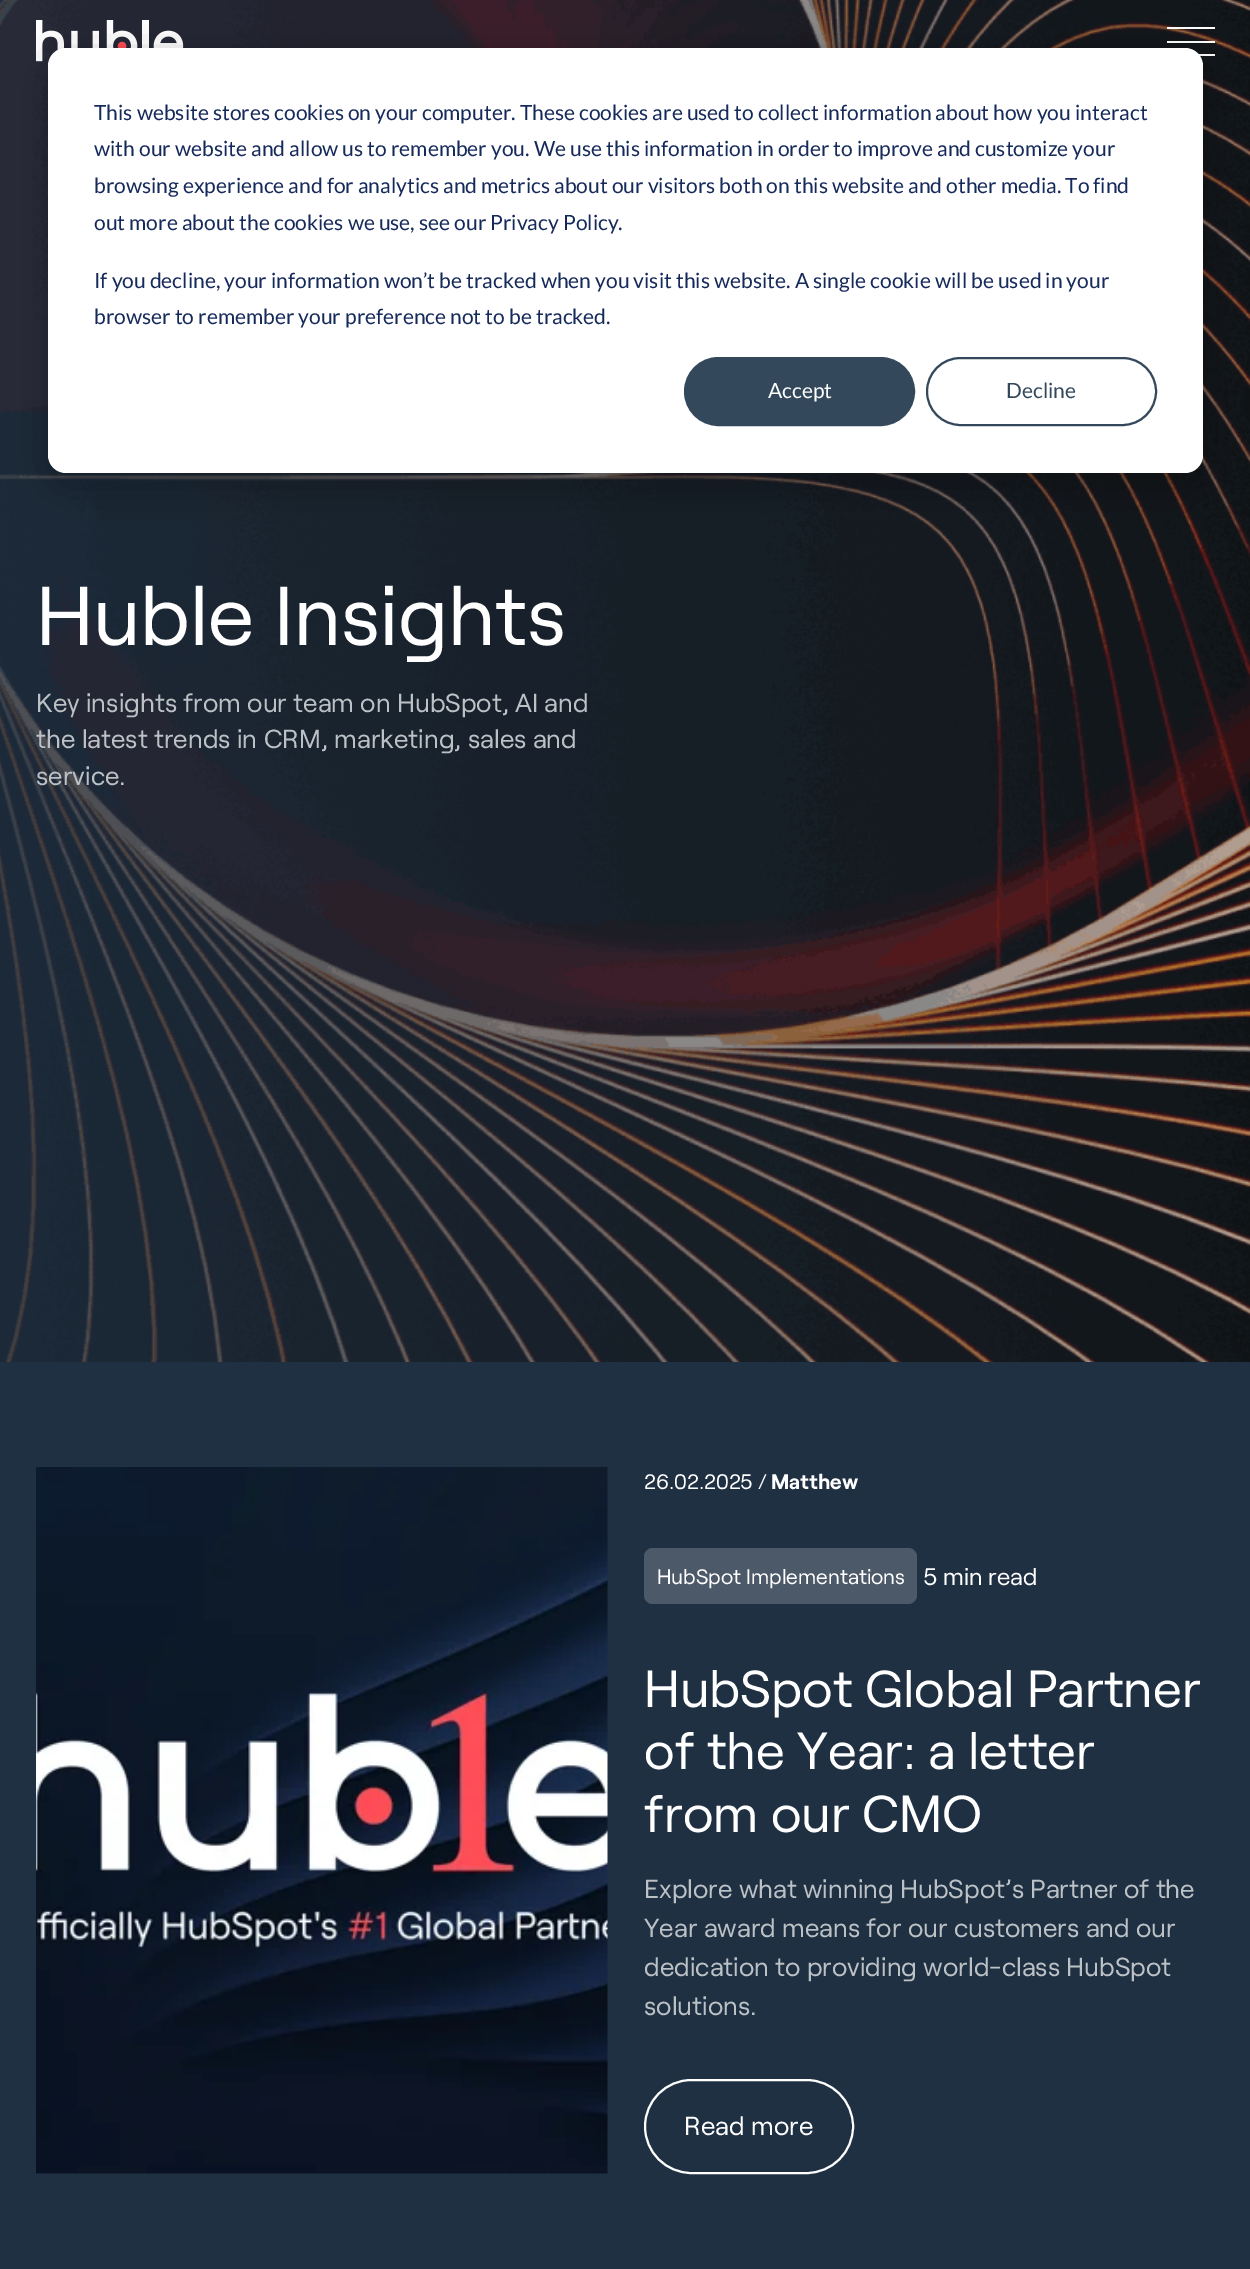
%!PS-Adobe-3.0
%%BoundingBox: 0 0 1250 2269
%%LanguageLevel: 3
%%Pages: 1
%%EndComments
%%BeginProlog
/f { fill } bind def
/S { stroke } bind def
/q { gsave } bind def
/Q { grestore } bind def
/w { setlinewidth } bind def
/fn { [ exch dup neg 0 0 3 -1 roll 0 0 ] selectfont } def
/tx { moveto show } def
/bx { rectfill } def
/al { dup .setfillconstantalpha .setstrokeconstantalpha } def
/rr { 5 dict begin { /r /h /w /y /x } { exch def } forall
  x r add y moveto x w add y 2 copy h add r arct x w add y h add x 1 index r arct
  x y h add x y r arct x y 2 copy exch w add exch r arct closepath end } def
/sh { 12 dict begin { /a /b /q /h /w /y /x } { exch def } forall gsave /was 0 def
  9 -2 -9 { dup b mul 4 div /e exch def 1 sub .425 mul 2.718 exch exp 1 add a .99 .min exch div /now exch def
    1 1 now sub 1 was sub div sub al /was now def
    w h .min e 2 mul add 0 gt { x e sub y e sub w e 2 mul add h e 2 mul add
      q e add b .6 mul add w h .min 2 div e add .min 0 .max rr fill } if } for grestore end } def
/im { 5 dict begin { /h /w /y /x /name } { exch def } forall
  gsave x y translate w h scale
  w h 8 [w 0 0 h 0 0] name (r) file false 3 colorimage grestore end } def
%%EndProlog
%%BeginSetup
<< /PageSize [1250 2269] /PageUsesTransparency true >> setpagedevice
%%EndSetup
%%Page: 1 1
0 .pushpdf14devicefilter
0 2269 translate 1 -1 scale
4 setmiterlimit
1 setgray
0 0 1250 2269 bx
(image1.raw) 0 0 1250 1362 im
(image0.raw) 36 20 148 42 im
1167 27 48 2 bx
1167 41 48 2 bx
1198 54 17 2 bx
0 setgray
48 60 1155 425 18 21 0.28 sh
1 setgray
48 48 1155 425 18 rr f
/Lato-Regular 21 fn
0.082 0.161 0.353 setrgbcolor
(This website stores cookies on your computer. These cookies are used to collect information about how you interact) 94 120 tx
(with our website and allow us to remember you. We use this information in order to improve and customize your) 94 156 tx
(browsing experience and for analytics and metrics about our visitors both on this website and other media. To find) 94 193 tx
(out more about the cookies we use, see our Privacy Policy.) 94 230 tx
(If you decline, your information won’t be tracked when you visit this website. A single cookie will be used in your) 94 288 tx
(browser to remember your preference not to be tracked.) 94 324 tx
0.204 0.282 0.361 setrgbcolor
685 358 229 67 33.5 rr q f Q
2 w
S
1 setgray
(Accept) 768 398 tx
0.204 0.282 0.361 setrgbcolor
927 358 229 67 33.5 rr S
(Decline) 1006 398 tx
/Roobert-Regular 83.25 fn
1 setgray
(Huble Insights) 36 645 tx
/Roobert-Regular 26.2 fn
0.737 0.757 0.776 setrgbcolor
(Key insights from our team on HubSpot, AI and) 36 712 tx
(the latest trends in CRM, marketing, sales and) 36 748 tx
(service.) 36 785 tx
0.122 0.188 0.259 setrgbcolor
0 1362 1250 907 bx
(image2.raw) 36 1467 572 707 im
/Roobert-Regular 21 fn
1 setgray
(26.02.2025 /) 644 1489 tx
/Roobert-Bold 21 fn
(Matthew) 771 1489 tx
0.298 0.349 0.408 setrgbcolor
644 1548 273 56 9 rr f
/Roobert-Regular 21 fn
1 setgray
(HubSpot Implementations) 657 1584 tx
/Roobert-Regular 24 fn
(5 min read) 923 1585 tx
/Roobert-Regular 52 fn
(HubSpot Global Partner) 644 1707 tx
(of the Year: a letter) 644 1769 tx
(from our CMO) 644 1832 tx
/Roobert-Regular 26.2 fn
0.737 0.757 0.776 setrgbcolor
(Explore what winning HubSpot’s Partner of the) 644 1898 tx
(Year award means for our customers and our) 644 1937 tx
(dedication to providing world-class HubSpot) 644 1976 tx
(solutions.) 644 2015 tx
1 setgray
645 2080 208 93 46.5 rr S
(Read more) 684 2135 tx
.poppdf14devicefilter showpage
%%EOF
